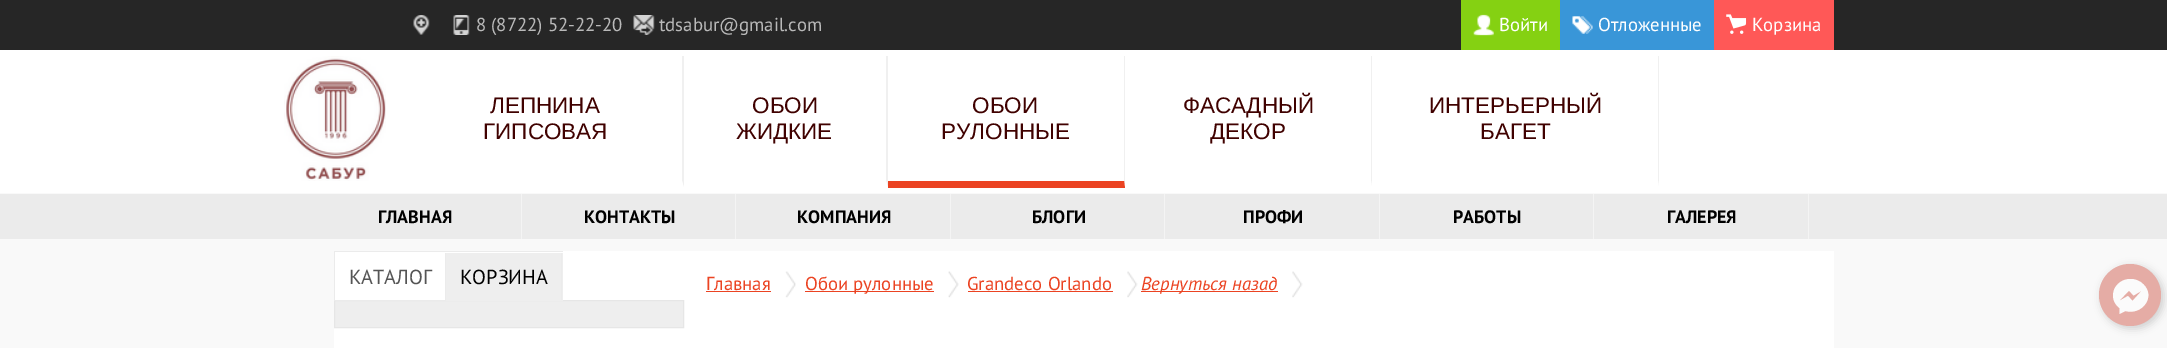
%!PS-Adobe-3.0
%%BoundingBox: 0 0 2167 348
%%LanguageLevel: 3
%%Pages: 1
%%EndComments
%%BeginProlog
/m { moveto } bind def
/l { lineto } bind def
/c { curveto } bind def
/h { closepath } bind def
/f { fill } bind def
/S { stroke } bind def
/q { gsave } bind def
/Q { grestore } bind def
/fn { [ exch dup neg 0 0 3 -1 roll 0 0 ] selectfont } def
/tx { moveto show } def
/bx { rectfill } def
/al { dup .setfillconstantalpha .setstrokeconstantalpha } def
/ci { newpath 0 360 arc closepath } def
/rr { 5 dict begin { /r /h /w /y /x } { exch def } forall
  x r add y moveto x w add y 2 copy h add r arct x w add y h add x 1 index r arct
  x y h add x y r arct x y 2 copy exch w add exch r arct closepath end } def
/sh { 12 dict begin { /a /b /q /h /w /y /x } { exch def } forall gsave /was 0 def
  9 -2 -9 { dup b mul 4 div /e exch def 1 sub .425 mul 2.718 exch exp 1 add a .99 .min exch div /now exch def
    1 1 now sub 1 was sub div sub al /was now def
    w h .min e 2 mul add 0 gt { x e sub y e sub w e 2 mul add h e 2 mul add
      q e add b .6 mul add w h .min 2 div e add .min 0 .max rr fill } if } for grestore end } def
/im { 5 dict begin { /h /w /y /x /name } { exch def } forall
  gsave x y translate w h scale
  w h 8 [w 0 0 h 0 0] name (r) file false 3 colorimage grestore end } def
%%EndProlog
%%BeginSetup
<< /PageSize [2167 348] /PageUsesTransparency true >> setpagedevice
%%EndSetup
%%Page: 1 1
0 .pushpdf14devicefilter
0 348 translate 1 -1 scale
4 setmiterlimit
0.976 setgray
0 0 2167 348 bx
1 setgray
0 50 2167 143 bx
0.149 setgray
0 0 2167 50 bx
(image0.raw) 413 15 17 20 im
(image1.raw) 453 15 17 20 im
/PTSans-Regular 18.75 fn
0.725 setgray
(8 \(8722\) 52-22-20) 476 31 tx
(image2.raw) 633 15 22 20 im
(tdsabur@gmail.com) 659 31 tx
0.522 0.82 0.071 setrgbcolor
1461 0 99 50 bx
(image3.raw) 1473 14 21 22 im
1 setgray
(Войти) 1499 31 tx
0.224 0.588 0.847 setrgbcolor
1560 0 154 50 bx
(image4.raw) 1572 16 21 18 im
1 setgray
(Отложенные) 1598 31 tx
1 0.345 0.341 setrgbcolor
1714 0 120 50 bx
(image5.raw) 1726 14 21 20 im
1 setgray
(Корзина) 1752 31 tx
(image6.raw) 284 56 102 125 im
0.941 setgray
684 56 m 684 188 l 682 181 l 682 56 l h f
1 setgray
684 188 m 409 188 l 409 181 l 682 181 l h f
/LiberationSans-Regular 22.5 fn
0.251 0.004 0 setrgbcolor
(ЛЕПНИНА) 490 113 tx
(ГИПСОВАЯ) 483 139 tx
0.941 setgray
888 56 m 888 188 l 886 181 l 886 56 l h f
1 setgray
888 188 m 684 188 l 684 181 l 886 181 l h f
0.251 0.004 0 setrgbcolor
(ОБОИ) 752 113 tx
(ЖИДКИЕ) 736 139 tx
0.941 setgray
1125 56 m 1125 188 l 1124 181 l 1124 56 l h f
0.922 0.263 0.133 setrgbcolor
1125 188 m 888 188 l 888 181 l 1124 181 l h f
0.251 0.004 0 setrgbcolor
(ОБОИ) 972 113 tx
(РУЛОННЫЕ) 941 139 tx
0.941 setgray
1372 56 m 1372 188 l 1371 181 l 1371 56 l h f
1 setgray
1372 188 m 1125 188 l 1125 181 l 1371 181 l h f
0.251 0.004 0 setrgbcolor
(ФАСАДНЫЙ) 1183 113 tx
(ДЕКОР) 1210 139 tx
0.941 setgray
1659 56 m 1659 188 l 1658 181 l 1658 56 l h f
1 setgray
1659 188 m 1372 188 l 1372 181 l 1658 181 l h f
0.251 0.004 0 setrgbcolor
(ИНТЕРЬЕРНЫЙ) 1429 113 tx
(БАГЕТ) 1480 139 tx
0.922 setgray
0 194 2167 45 bx
0.957 setgray
521 194 1 45 bx
/PTSans-Bold 18 fn
0 setgray
(ГЛАВНАЯ) 378 223 tx
0.957 setgray
735 194 1 45 bx
0 setgray
(КОНТАКТЫ) 584 223 tx
0.957 setgray
950 194 1 45 bx
0 setgray
(КОМПАНИЯ) 797 223 tx
0.957 setgray
1164 194 1 45 bx
0 setgray
(БЛОГИ) 1032 223 tx
0.957 setgray
1379 194 1 45 bx
0 setgray
(ПРОФИ) 1243 223 tx
0.957 setgray
1593 194 1 45 bx
0 setgray
(РАБОТЫ) 1453 223 tx
0.957 setgray
1808 194 1 45 bx
0 setgray
(ГАЛЕРЕЯ) 1667 223 tx
1 setgray
334 251 1500 97 bx
0.933 setgray
334.5 300.5 m 683.5 300.5 l 683.5 327.5 l 334.5 327.5 l h q f Q
0.902 setgray
S
0.922 setgray
334 251 1 50 bx
335 251 228 1 bx
445 253 1 48 bx
335 300 111 1 bx
/PTSans-Regular 20.25 fn
0.333 setgray
(КАТАЛОГ) 349 284 tx
0.933 setgray
446 253 117 47 bx
0.922 setgray
561 253 1 48 bx
0.933 setgray
446 300 117 1 bx
0 setgray
(КОРЗИНА) 460 284 tx
/PTSans-Regular 18.75 fn
0.922 0.263 0.133 setrgbcolor
(Главная) 706 290 tx
706 291 65 1 bx
(image7.raw) 785 271 11 27 im
805 291 129 1 bx
(Обои рулонные) 805 290 tx
(image8.raw) 948 271 11 27 im
(Grandeco Orlando) 967 290 tx
968 291 145 1 bx
(image9.raw) 1127 271 11 27 im
1141 291 137 1 bx
/PTSans-Italic 18.75 fn
(Вернуться назад) 1141 290 tx
(image9.raw) 1292 271 11 27 im
0.584 setgray
2101 266 63 63 31.5 4 0.4 sh
0.898 0.675 0.647 setrgbcolor
2130 295 31 ci f
0.984 setgray
2130.5 279 m 2114.5 279 2106.5 298 2119.5 308 c 2119.5 314 l 2125.5 311 l 2142 315.5 2156.5 296.5 2143 284 c 2139.5 280.5 2135 279 2130.5 279 c h 2132.5 301 m 2128 296 l 2119 301 l 2129 290.5 l 2133.5 295.5 l 2142 290.5 l h eofill
.poppdf14devicefilter showpage
%%EOF
